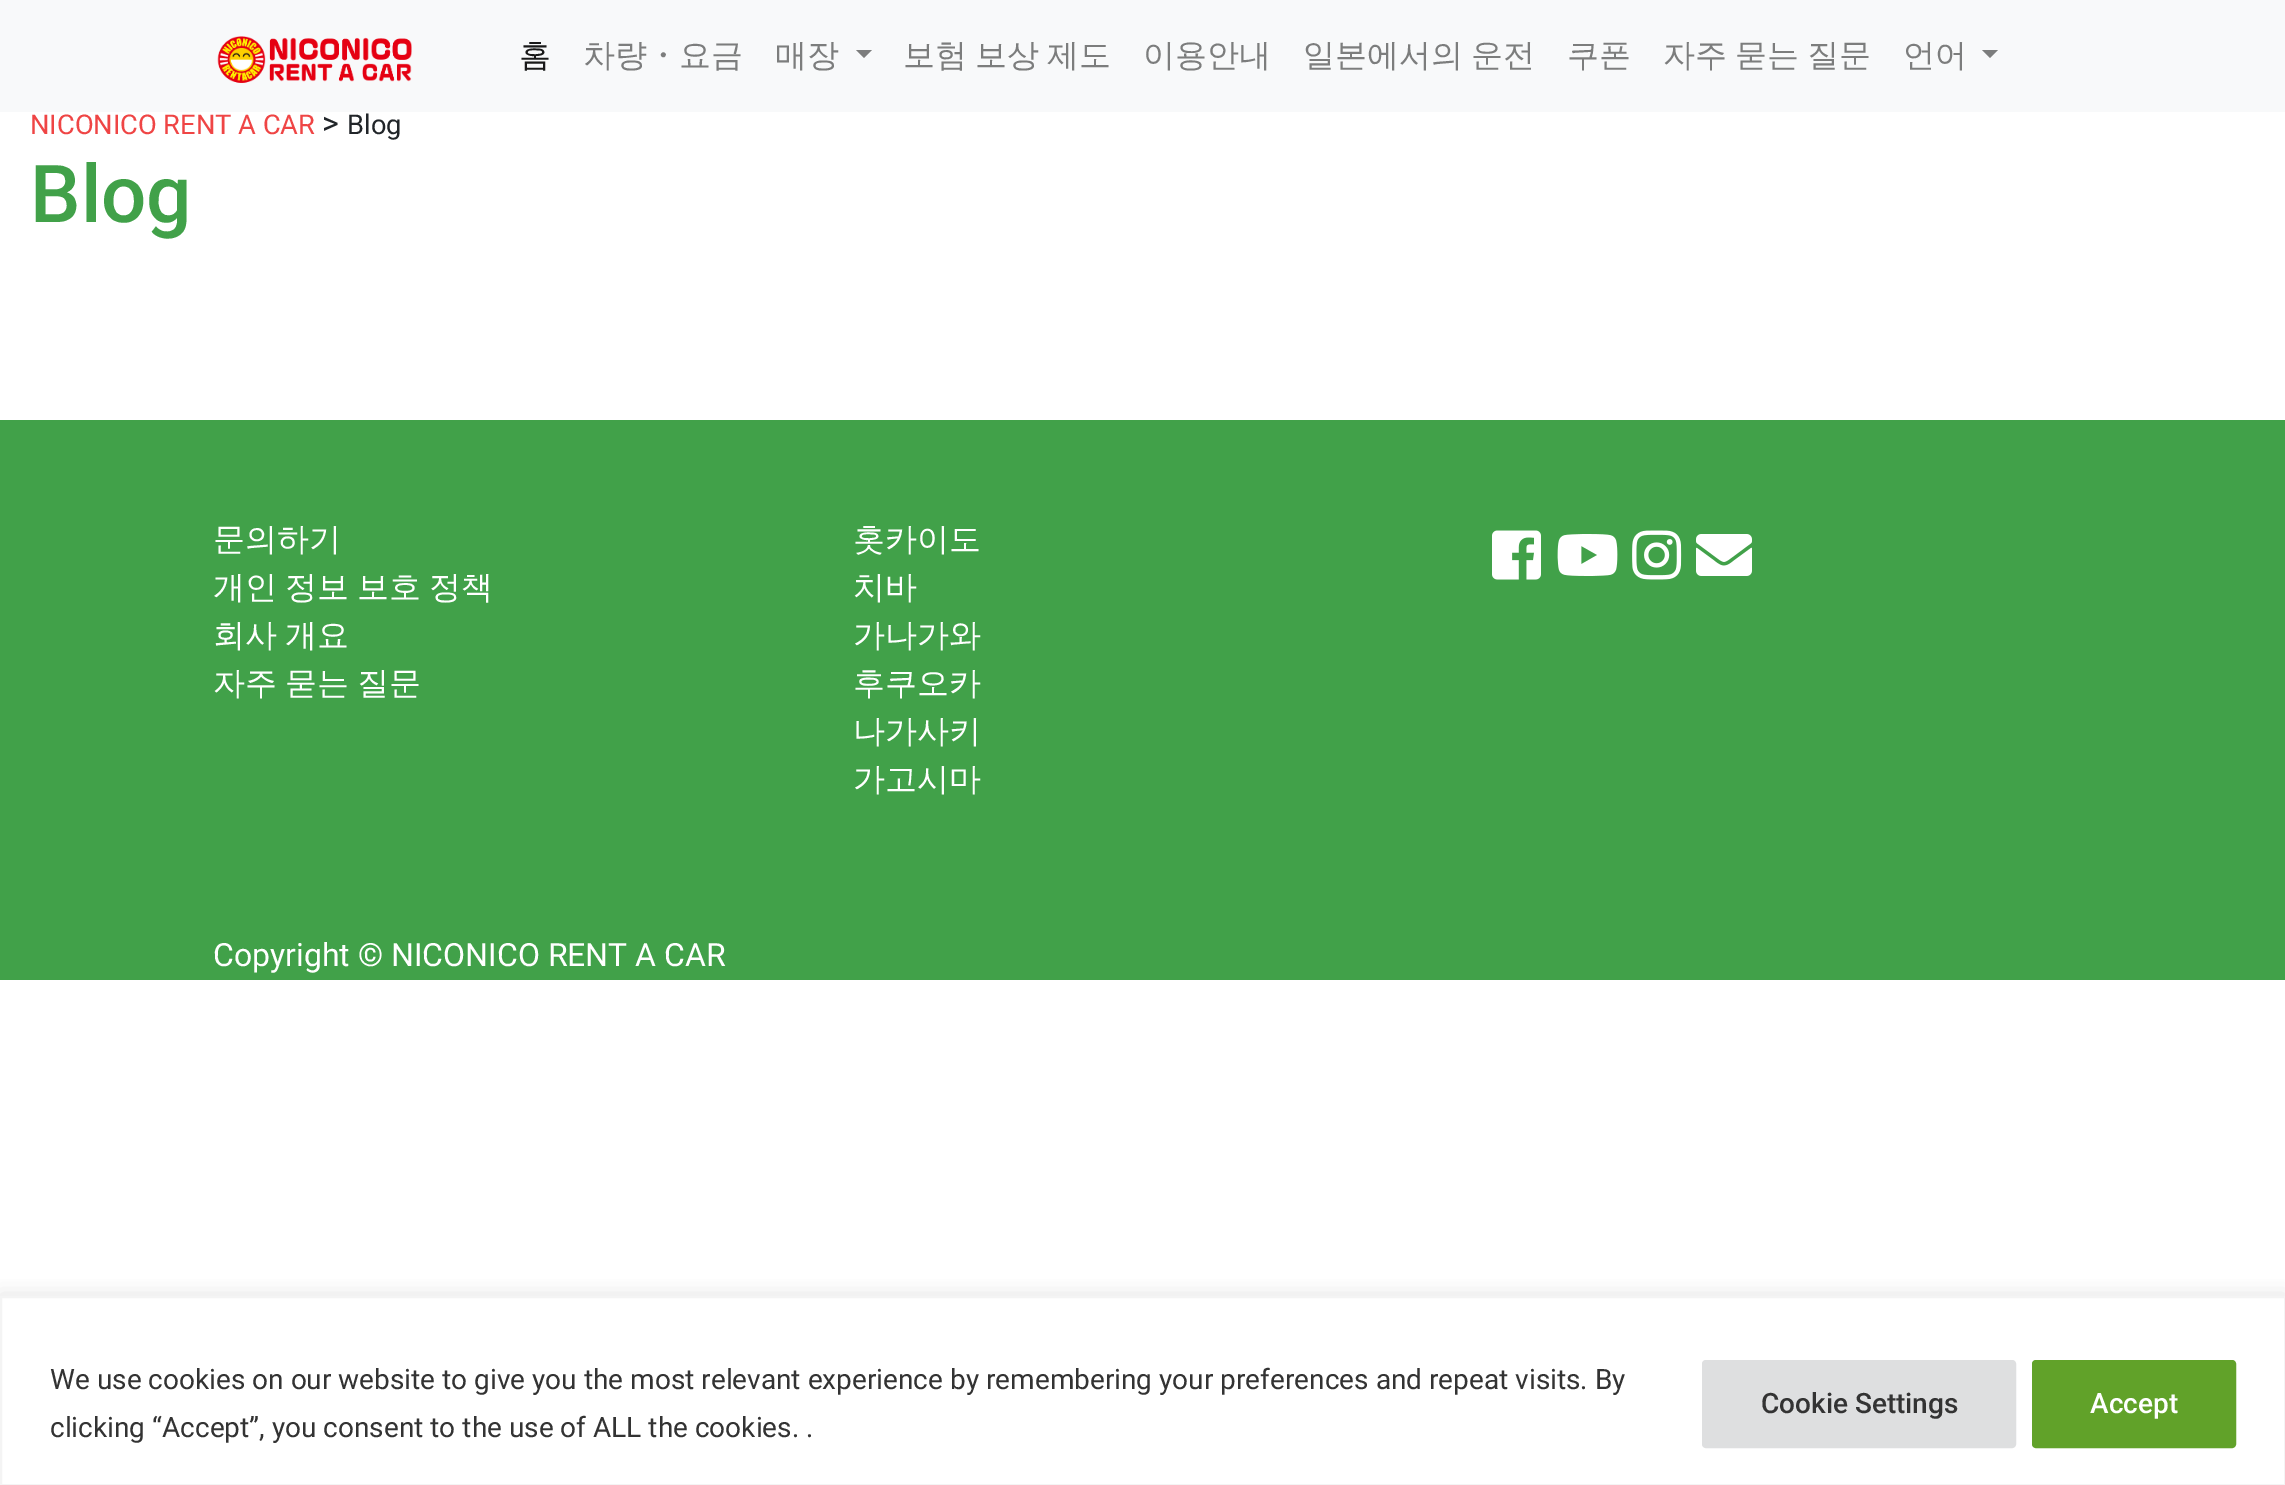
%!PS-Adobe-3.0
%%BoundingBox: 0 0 2285 1485
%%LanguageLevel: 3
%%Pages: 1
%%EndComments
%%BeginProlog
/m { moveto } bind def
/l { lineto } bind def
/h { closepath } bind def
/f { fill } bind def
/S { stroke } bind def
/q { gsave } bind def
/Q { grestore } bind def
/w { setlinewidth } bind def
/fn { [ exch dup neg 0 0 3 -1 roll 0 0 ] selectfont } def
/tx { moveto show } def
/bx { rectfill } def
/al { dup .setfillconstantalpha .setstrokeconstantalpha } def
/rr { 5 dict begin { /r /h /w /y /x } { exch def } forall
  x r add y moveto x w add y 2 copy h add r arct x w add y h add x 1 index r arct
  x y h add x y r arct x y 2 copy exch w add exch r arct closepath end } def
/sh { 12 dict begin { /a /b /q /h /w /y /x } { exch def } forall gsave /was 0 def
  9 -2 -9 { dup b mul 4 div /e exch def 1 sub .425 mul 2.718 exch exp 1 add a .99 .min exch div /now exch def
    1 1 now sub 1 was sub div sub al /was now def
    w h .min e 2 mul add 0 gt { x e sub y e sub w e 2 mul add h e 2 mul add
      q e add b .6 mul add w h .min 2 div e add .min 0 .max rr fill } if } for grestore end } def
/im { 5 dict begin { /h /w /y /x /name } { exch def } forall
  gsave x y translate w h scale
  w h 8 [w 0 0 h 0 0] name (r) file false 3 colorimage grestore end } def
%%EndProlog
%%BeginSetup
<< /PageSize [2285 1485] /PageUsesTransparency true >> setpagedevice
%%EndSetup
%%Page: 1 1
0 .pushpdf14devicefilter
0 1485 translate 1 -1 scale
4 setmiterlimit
1 setgray
0 0 2285 1485 bx
0.973 0.976 0.98 setrgbcolor
0 0 2285 112 bx
(image0.raw) 217 36 195 47 im
/WenQuanYiZenHei-Medium 32 fn
0.098 setgray
(홈) 519 66 tx
0.486 0.49 0.49 setrgbcolor
(차량・요금) 583 66 tx
(매장) 775 66 tx
856 50 m 872 50 l 864 58 l h f
903 66 m -1.5 0 32 (보험 보상 제도) widthshow
(이용안내) 1143 66 tx
1303 66 m -1.5 0 32 (일본에서의 운전) widthshow
(쿠폰) 1567 66 tx
1663 66 m -1.5 0 32 (자주 묻는 질문) widthshow
(언어) 1903 66 tx
1982 50 m 1998 50 l 1990 58 l h f
/Roboto-Regular 27.25 fn
0.937 0.271 0.271 setrgbcolor
(NICONICO RENT A CAR) 30 134 tx
/Roboto-Regular 32 fn
0.129 0.145 0.161 setrgbcolor
(>) 322 134 tx
/Roboto-Regular 27.25 fn
(Blog) 347 134 tx
/Roboto-Medium 80 fn
0.255 0.631 0.286 setrgbcolor
(Blog) 30 222 tx
0 420 2285 560 bx
/WenQuanYiZenHei-Medium 32 fn
1 setgray
(문의하기) 213 550 tx
213 598 m -1.5 0 32 (개인 정보 보호 정책) widthshow
213 646 m -1.5 0 32 (회사 개요) widthshow
213 694 m -1.5 0 32 (자주 묻는 질문) widthshow
(홋카이도) 853 550 tx
(치바) 853 598 tx
(가나가와) 853 646 tx
(후쿠오카) 853 694 tx
(나가사키) 853 742 tx
(가고시마) 853 790 tx
(image1.raw) 1492 530 49 50 im
(image2.raw) 1557 534 61 42 im
(image3.raw) 1632 530 50 50 im
(image4.raw) 1696 534 56 42 im
/Roboto-Regular 32 fn
(Copyright © NICONICO RENT A CAR) 213 966 tx
q
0 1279 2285 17 rectclip
0.675 0.671 0.671 setrgbcolor
0 1294 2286 190 0 10 0.3 sh
Q
0.957 setgray
2 w
1 1297 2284 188 rectstroke
/Roboto-Regular 28 fn
0.2 setgray
(We use cookies on our website to give you the most relevant experience by remembering your preferences and repeat visits. By) 50 1389 tx
(clicking “Accept”, you consent to the use of ALL the cookies. .) 50 1437 tx
0.871 0.875 0.878 setrgbcolor
1704 1362 310 84 2 rr q f Q
4 w
S
/Roboto-Medium 28 fn
0.2 setgray
(Cookie Settings) 1761 1413 tx
0.38 0.635 0.161 setrgbcolor
2034 1362 200 84 2 rr q f Q
S
1 setgray
(Accept) 2090 1413 tx
.poppdf14devicefilter showpage
%%EOF
